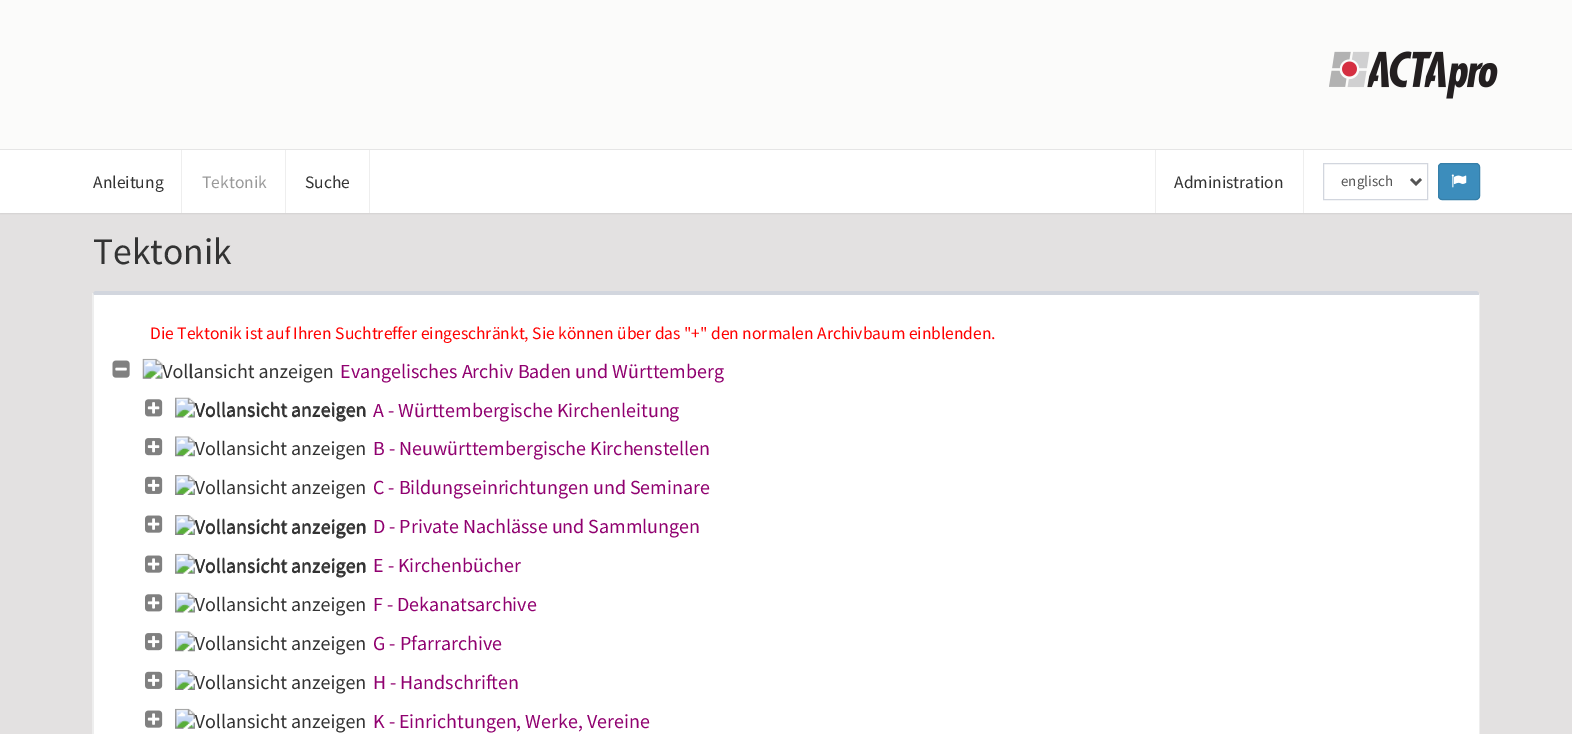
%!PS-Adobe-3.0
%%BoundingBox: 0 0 1572 734
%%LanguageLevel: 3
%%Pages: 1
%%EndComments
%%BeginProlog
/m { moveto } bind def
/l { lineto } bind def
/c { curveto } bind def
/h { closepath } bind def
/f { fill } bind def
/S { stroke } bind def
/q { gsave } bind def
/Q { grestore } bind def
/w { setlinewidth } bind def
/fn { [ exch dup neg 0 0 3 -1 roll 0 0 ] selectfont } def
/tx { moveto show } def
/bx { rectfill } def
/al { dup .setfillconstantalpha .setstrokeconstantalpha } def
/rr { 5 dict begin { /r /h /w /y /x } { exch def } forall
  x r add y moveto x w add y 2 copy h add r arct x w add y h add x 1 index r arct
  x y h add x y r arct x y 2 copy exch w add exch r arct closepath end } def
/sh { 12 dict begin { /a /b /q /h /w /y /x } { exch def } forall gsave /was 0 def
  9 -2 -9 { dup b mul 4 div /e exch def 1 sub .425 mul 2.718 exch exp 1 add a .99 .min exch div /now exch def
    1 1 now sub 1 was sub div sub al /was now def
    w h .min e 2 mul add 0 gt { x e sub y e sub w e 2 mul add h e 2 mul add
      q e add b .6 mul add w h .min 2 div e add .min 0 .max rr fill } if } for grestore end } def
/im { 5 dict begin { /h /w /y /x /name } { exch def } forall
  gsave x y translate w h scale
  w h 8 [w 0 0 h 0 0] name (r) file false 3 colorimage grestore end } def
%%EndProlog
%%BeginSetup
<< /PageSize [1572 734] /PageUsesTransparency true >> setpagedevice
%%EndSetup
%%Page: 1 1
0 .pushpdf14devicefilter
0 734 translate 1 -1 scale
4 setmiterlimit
0.89 0.882 0.882 setrgbcolor
0 0 1572 734 bx
0.984 0.984 0.98 setrgbcolor
0 0 1572 149 bx
0.898 setgray
0 149 1572 1 bx
(image0.raw) 1329 51 169 48 im
0 setgray
0 151 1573 63 0 0.5 0.05 sh
1 setgray
0 150 1572 63 bx
0.933 setgray
181 150 1 63 bx
/SourceSansPro-Regular 17.5 fn
0.2 setgray
(Anleitung) 93 188 tx
0.933 setgray
285 150 1 63 bx
0.6 setgray
(Tektonik) 202 188 tx
0.933 setgray
369 150 1 63 bx
0.2 setgray
(Suche) 305 188 tx
0.933 setgray
1155 150 1 63 bx
0.2 setgray
(Administration) 1174 188 tx
0.933 setgray
1303 150 1 63 bx
0.824 0.839 0.871 setrgbcolor
1323.5 163.5 104 36 rectstroke
0.333 setgray
2.5 w
1411 179 m 1416 184 l 1421 179 l S
/SourceSansPro-Regular 15 fn
(englisch) 1341 186 tx
0.235 0.553 0.737 setrgbcolor
1438.5 163.5 41 36 3.5 rr q f Q
0.212 0.498 0.663 setrgbcolor
1 w
S
(image1.raw) 1451 174 16 14 im
/SourceSansPro-Regular 37.5 fn
0.2 setgray
(Tektonik) 93 264 tx
1 setgray
96 295 m 1479 295 l 1479 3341 l 1479 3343 1478 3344 1476 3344 c 96 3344 l 95 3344 94 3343 94 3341 c 94 295 l h f
0.824 0.839 0.871 setrgbcolor
93 293 m 95 291 l 1477 291 l 1479 293 l 1479 295 l 94 295 l 94 296 l h f
0.933 setgray
1480 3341 m 1480 295 l 1479 293 l 1479 295 l 1479 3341 l 1478 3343 l 1479 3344 l h f
92 293 m 93 293 l 94 296 l 94 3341 l 94 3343 l 94 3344 l 92 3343 l h f
/SourceSansPro-Regular 17.5 fn
1 0 0 setrgbcolor
(Die Tektonik ist auf Ihren Suchtreffer eingeschränkt, Sie können über das "+" den normalen Archivbaum einblenden.) 150 339 tx
(image2.raw) 112 360 18 18 im
(image3.raw) 142 358 191 25 im
/SourceSansPro-Regular 20 fn
0.2 setgray
(l) 188 378 tx
0.565 0 0.435 setrgbcolor
(Evangelisches Archiv Baden und Württemberg) 340 378 tx
(image4.raw) 145 399 18 18 im
(image5.raw) 175 397 190 24 im
0.2 setgray
(Vollansicht anzeigen) 195 417 tx
0.565 0 0.435 setrgbcolor
(A - Württembergische Kirchenleitung) 373 417 tx
(image6.raw) 145 438 18 18 im
(image7.raw) 175 436 190 24 im
(B - Neuwürttembergische Kirchenstellen) 373 455 tx
(image8.raw) 145 476 18 18 im
(image9.raw) 175 475 190 24 im
(C - Bildungseinrichtungen und Seminare) 373 494 tx
(image10.raw) 145 515 18 18 im
(image9.raw) 175 515 190 24 im
0.2 setgray
(Vollansicht anzeigen) 195 533 tx
0.565 0 0.435 setrgbcolor
(D - Private Nachlässe und Sammlungen) 373 533 tx
(image10.raw) 145 555 18 18 im
(image11.raw) 175 553 190 25 im
0.2 setgray
(Vollansicht anzeigen) 195 572 tx
0.565 0 0.435 setrgbcolor
(E - Kirchenbücher) 373 572 tx
(image4.raw) 145 594 18 18 im
(image5.raw) 175 592 190 24 im
(F - Dekanatsarchive) 373 611 tx
(image6.raw) 145 633 18 18 im
(image7.raw) 175 631 190 24 im
(G - Pfarrarchive) 373 650 tx
(image8.raw) 145 671 18 18 im
(image9.raw) 175 670 190 24 im
(H - Handschriften) 373 689 tx
(image10.raw) 145 710 18 18 im
(image11.raw) 175 708 190 25 im
(K - Einrichtungen, Werke, Vereine) 373 728 tx
.poppdf14devicefilter showpage
%%EOF
